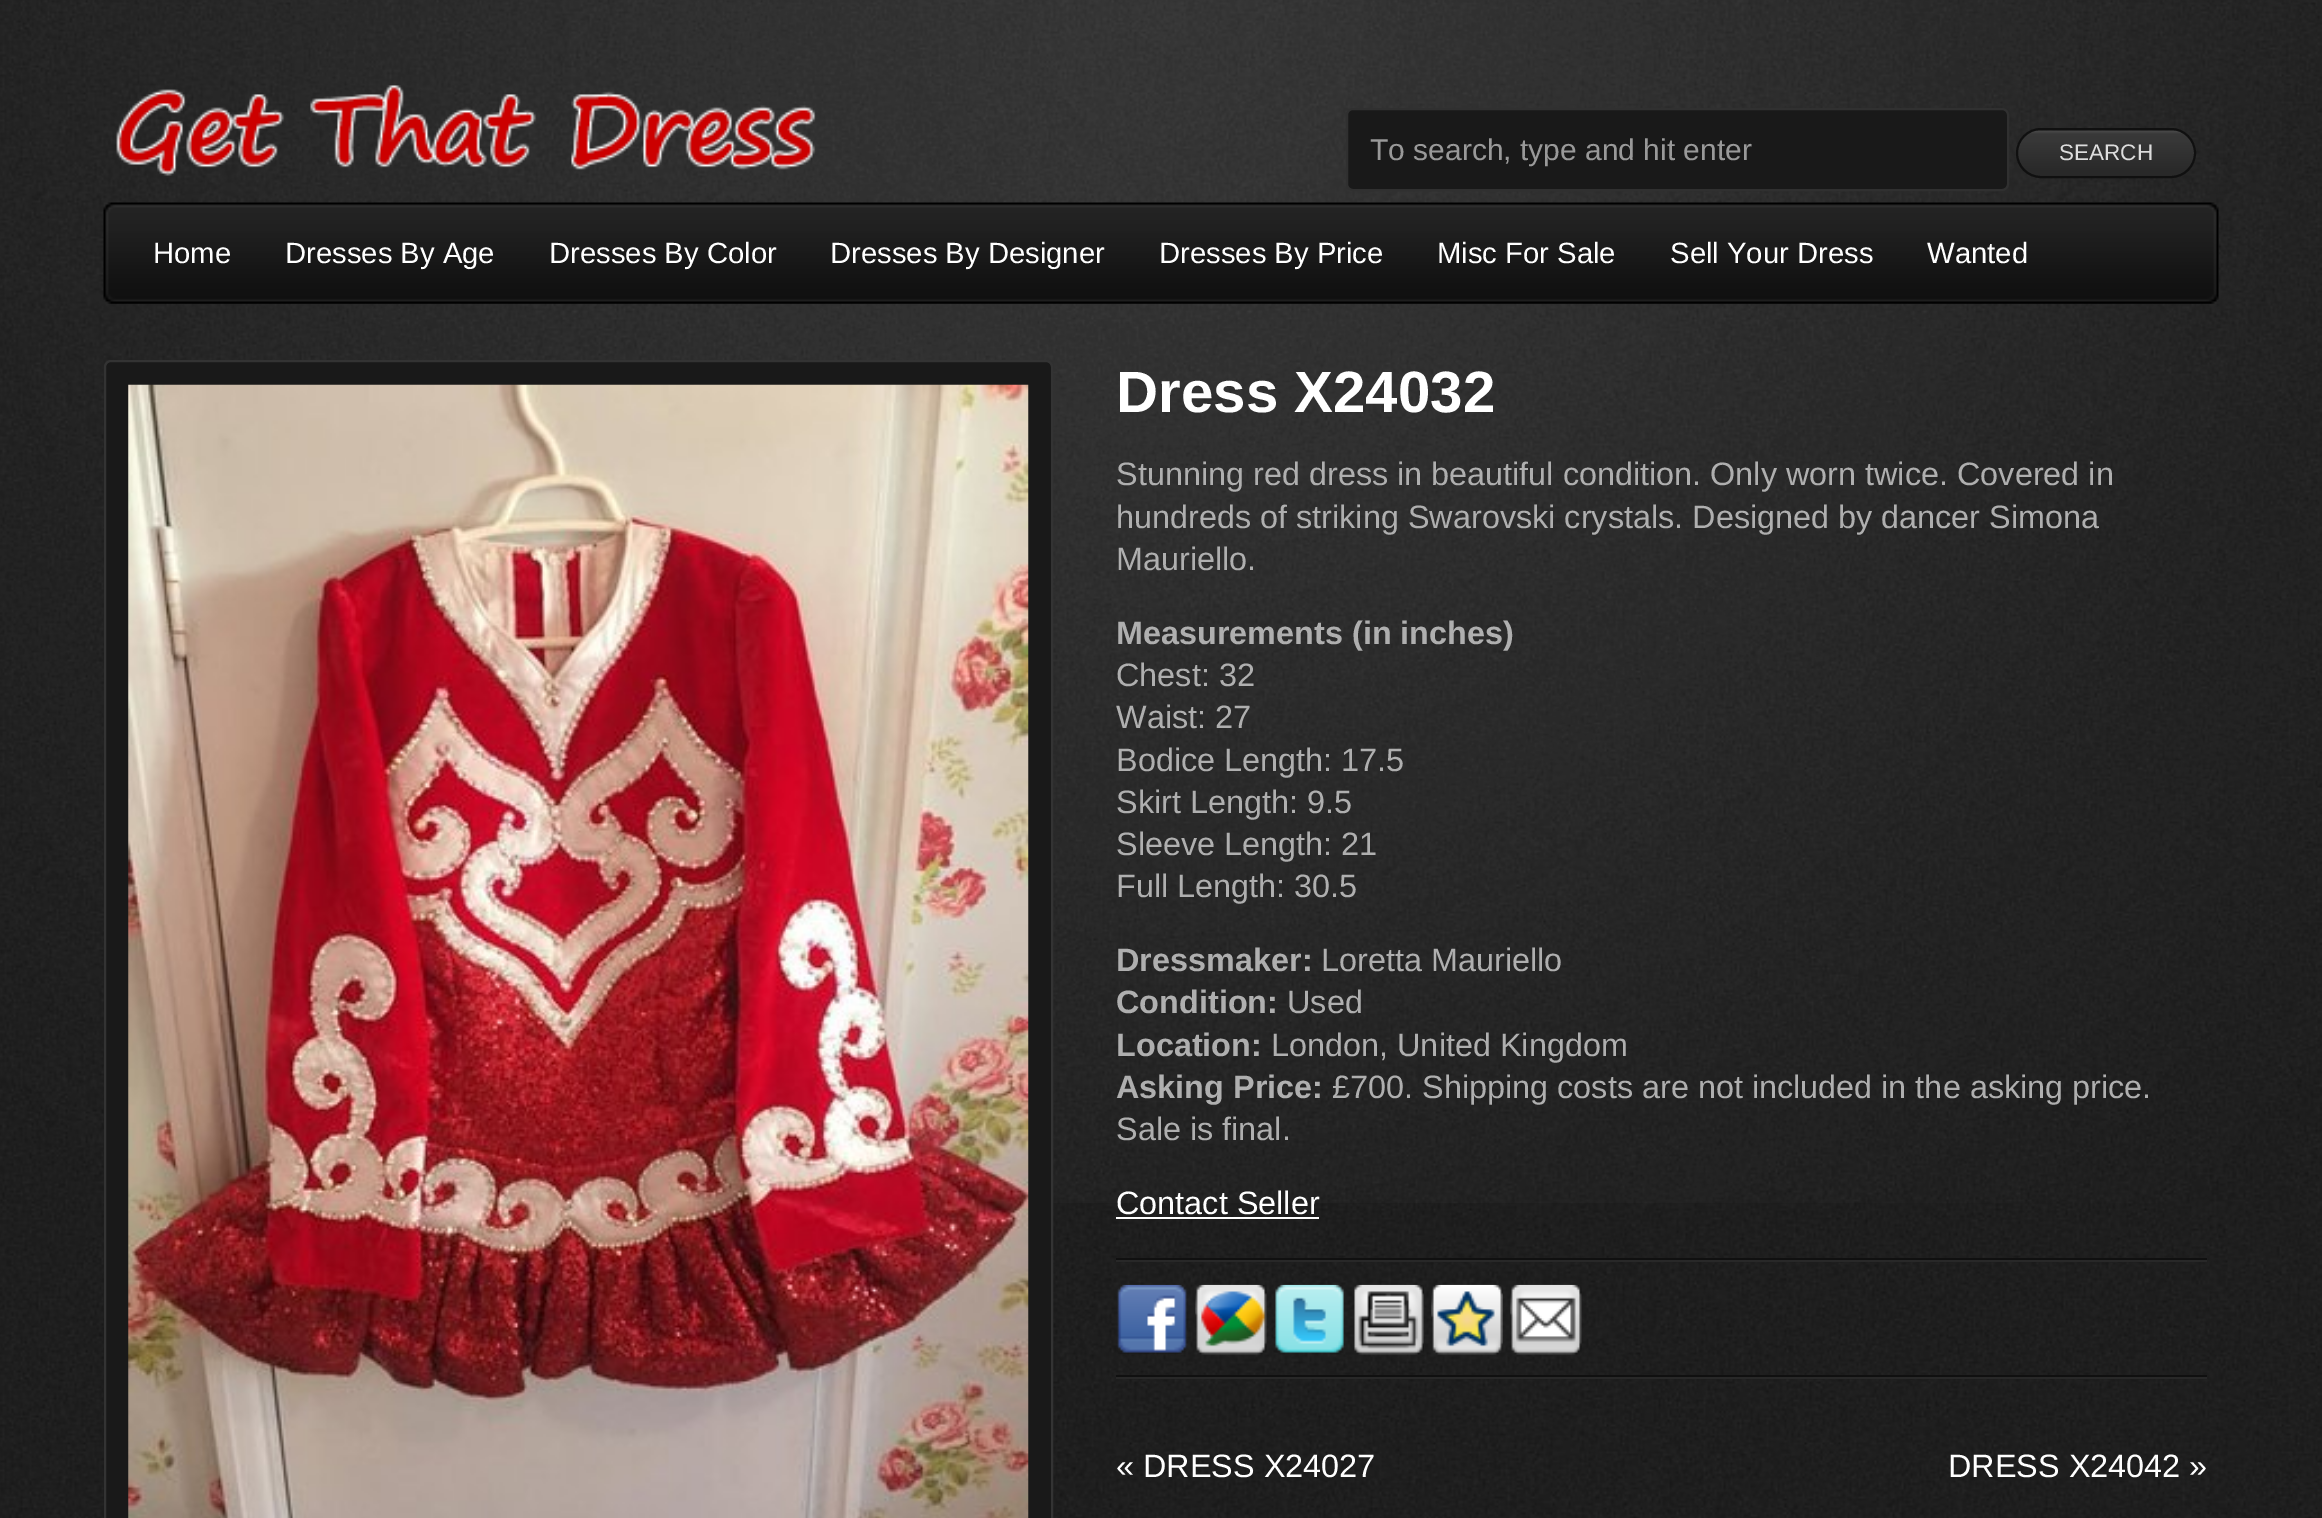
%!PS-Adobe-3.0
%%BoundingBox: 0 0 2322 1518
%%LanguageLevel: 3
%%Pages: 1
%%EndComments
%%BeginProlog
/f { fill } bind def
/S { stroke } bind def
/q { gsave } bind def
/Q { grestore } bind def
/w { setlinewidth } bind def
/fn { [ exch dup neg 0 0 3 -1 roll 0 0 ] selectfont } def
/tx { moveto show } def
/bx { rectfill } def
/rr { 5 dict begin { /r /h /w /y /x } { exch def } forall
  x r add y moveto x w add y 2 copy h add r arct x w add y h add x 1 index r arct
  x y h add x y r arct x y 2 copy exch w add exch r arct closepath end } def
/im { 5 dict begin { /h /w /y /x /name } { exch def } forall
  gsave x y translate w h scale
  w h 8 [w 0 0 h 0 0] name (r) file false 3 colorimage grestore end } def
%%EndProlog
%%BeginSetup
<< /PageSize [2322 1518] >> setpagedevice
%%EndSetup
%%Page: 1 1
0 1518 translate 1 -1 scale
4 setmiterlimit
1 setgray
0 0 2322 1518 bx
(image0.raw) 0 0 2322 1518 im
(image1.raw) 0 0 2322 1203 im
(image2.raw) 116 85 700 91 im
(image3.raw) 103 202 2116 102 im
0.098 setgray
1347 109 661 81 6 rr q f Q
0.188 setgray
2 w
S
/LiberationSans-Regular 30 fn
0.6 setgray
(To search, type and hit enter) 1370 160 tx
(image4.raw) 2016 130 180 48 im
0.063 setgray
2017 129 178 48 24 rr S
/LiberationSans-Regular 22.5 fn
0.867 setgray
(SEARCH) 2059 160 tx
/LiberationSans-Regular 29.25 fn
1 setgray
(Home) 153 263 tx
(Dresses By Age) 285 263 tx
(Dresses By Color) 549 263 tx
(Dresses By Designer) 830 263 tx
(Dresses By Price) 1159 263 tx
(Misc For Sale) 1437 263 tx
(Sell Your Dress) 1670 263 tx
(Wanted) 1927 263 tx
0.098 setgray
105 361 947 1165 6 rr q f Q
0.2 setgray
S
(image5.raw) 128 384 901 1134 im
/LiberationSans-Bold 58.25 fn
1 setgray
(Dress X24032) 1116 412 tx
/LiberationSans-Regular 32.4 fn
0.686 setgray
(Stunning red dress in beautiful condition. Only worn twice. Covered in) 1116 485 tx
(hundreds of striking Swarovski crystals. Designed by dancer Simona) 1116 528 tx
(Mauriello.) 1116 570 tx
/LiberationSans-Bold 32.4 fn
(Measurements \(in inches\)) 1116 644 tx
/LiberationSans-Regular 32.4 fn
(Chest: 32) 1116 686 tx
(Waist: 27) 1116 728 tx
(Bodice Length: 17.5) 1116 771 tx
(Skirt Length: 9.5) 1116 813 tx
(Sleeve Length: 21) 1116 855 tx
(Full Length: 30.5) 1116 897 tx
/LiberationSans-Bold 32.4 fn
(Dressmaker:) 1116 971 tx
/LiberationSans-Regular 32.4 fn
(Loretta Mauriello) 1321 971 tx
/LiberationSans-Bold 32.4 fn
(Condition:) 1116 1013 tx
/LiberationSans-Regular 32.4 fn
(Used) 1287 1013 tx
/LiberationSans-Bold 32.4 fn
(Location:) 1116 1056 tx
/LiberationSans-Regular 32.4 fn
(London, United Kingdom) 1271 1056 tx
/LiberationSans-Bold 32.4 fn
(Asking Price:) 1116 1098 tx
/LiberationSans-Regular 32.4 fn
(£700. Shipping costs are not included in the asking price.) 1332 1098 tx
(Sale is final.) 1116 1140 tx
1 setgray
(Contact Seller) 1116 1214 tx
1116 1217 203 2 bx
0.063 setgray
1116 1258 1091 2 bx
0.157 setgray
1116 1260 1091 2 bx
(image6.raw) 1117 1284 70 70 im
(image7.raw) 1195 1284 72 71 im
(image8.raw) 1275 1284 69 69 im
(image9.raw) 1354 1284 70 71 im
(image10.raw) 1431 1284 72 71 im
(image11.raw) 1510 1284 72 71 im
0.063 setgray
1116 1375 1091 2 bx
0.157 setgray
1116 1377 1091 2 bx
1 setgray
(« DRESS X24027) 1116 1477 tx
(DRESS X24042 ») 1948 1477 tx
showpage
%%EOF
